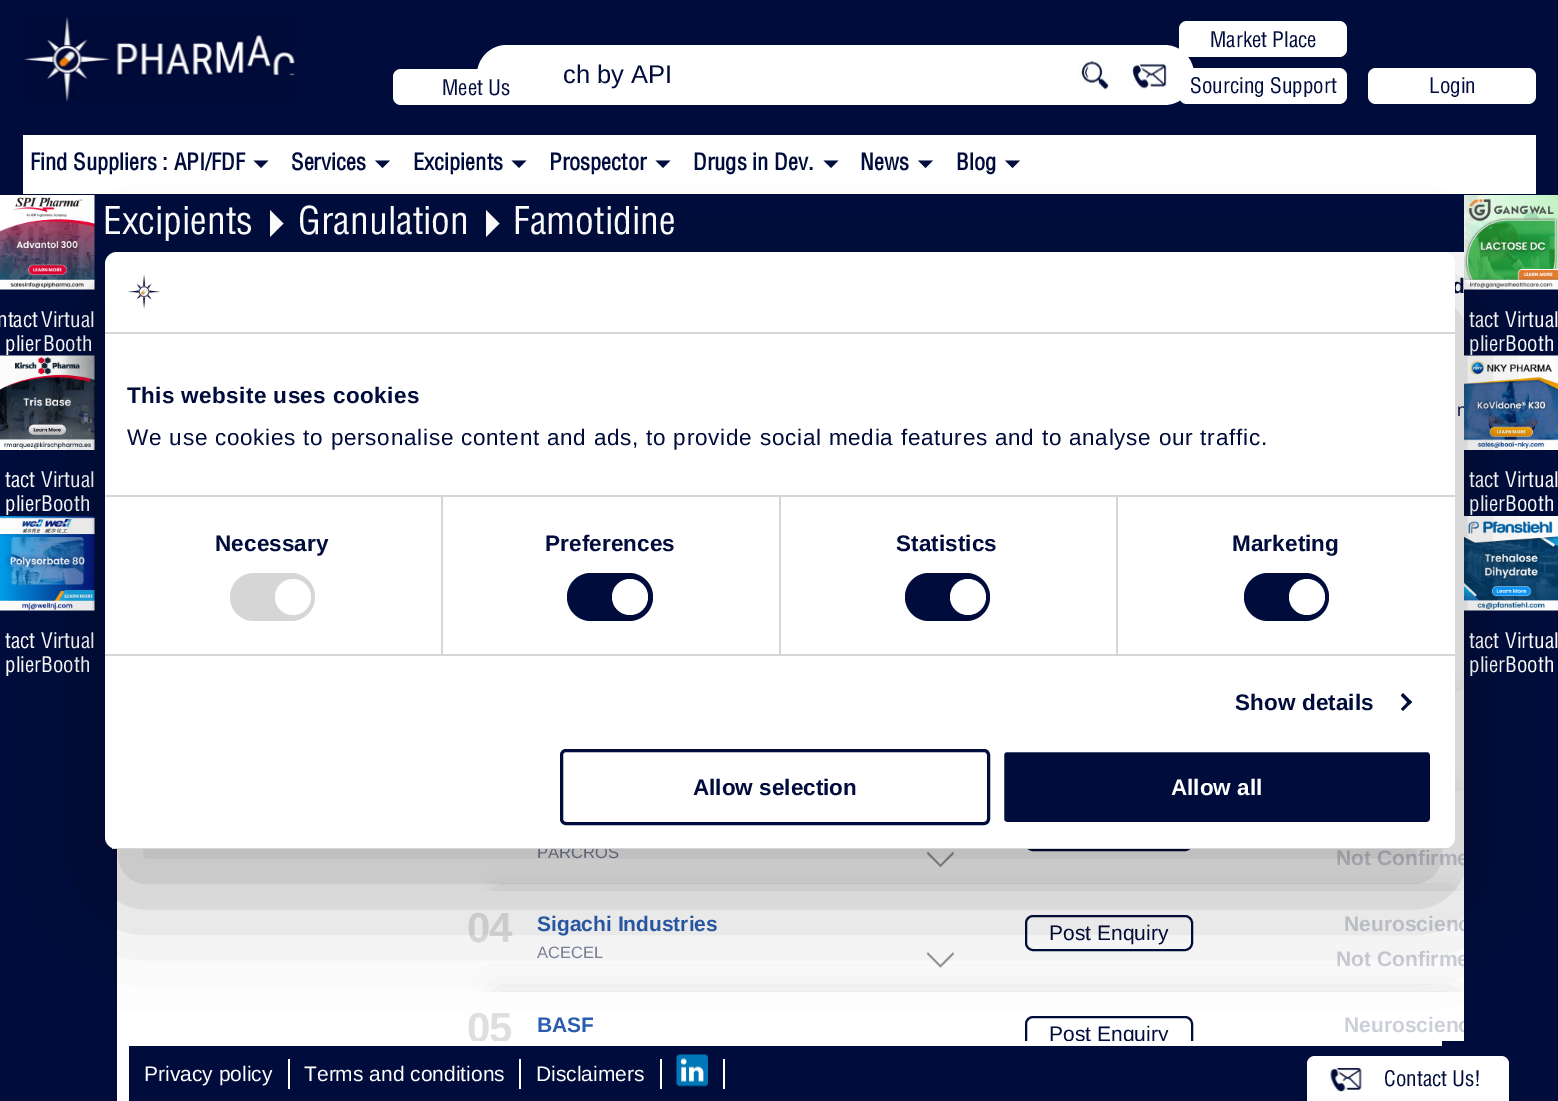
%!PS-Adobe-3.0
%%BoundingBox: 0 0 1558 1101
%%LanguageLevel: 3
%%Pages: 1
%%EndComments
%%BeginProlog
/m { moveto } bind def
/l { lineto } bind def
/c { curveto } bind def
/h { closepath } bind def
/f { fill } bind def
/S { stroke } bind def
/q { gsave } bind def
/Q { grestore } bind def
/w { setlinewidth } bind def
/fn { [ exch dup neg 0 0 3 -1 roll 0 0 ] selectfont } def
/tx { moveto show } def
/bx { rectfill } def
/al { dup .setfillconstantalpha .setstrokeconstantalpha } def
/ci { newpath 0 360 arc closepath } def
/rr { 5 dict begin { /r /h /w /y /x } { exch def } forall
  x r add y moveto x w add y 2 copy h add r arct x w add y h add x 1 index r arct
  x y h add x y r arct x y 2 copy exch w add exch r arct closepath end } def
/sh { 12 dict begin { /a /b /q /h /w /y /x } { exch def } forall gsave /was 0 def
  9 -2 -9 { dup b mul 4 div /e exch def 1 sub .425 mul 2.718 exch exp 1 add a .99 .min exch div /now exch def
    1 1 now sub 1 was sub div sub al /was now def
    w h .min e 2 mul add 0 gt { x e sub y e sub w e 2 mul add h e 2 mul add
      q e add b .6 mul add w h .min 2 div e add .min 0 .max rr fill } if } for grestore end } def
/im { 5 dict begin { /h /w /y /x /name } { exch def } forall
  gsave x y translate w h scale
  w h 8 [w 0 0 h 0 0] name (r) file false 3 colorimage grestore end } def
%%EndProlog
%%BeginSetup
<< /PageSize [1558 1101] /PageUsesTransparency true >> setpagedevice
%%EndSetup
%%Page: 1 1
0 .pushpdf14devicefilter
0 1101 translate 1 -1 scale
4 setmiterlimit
0 0.047 0.231 setrgbcolor
0 0 1558 1101 bx
(image0.raw) 24 17 272 85 im
1 setgray
477 45 717 60 30 rr f
393 69 168 36 8 rr f
/Helvetica-Medium 21 fn
0 0.047 0.231 setrgbcolor
(Meet Us) 442 95 tx
/LiberationSans-Regular 25.5 fn
(ch by API) 563 83 tx
(image1.raw) 1078 58 34 32 im
(image2.raw) 1131 61 36 28 im
1 setgray
1179 21 168 36 8 rr f
/Helvetica-Medium 21 fn
0 0.047 0.231 setrgbcolor
(Market Place) 1210 47 tx
1 setgray
1179 68 168 36 8 rr f
0 0.047 0.231 setrgbcolor
(Sourcing Support) 1190 93 tx
1 setgray
1368 68 168 36 8 rr f
0 0.047 0.231 setrgbcolor
(Login) 1429 93 tx
1 setgray
23 135 1513 59 bx
/Helvetica-Bold 22.5 fn
0 0.047 0.231 setrgbcolor
(Find Suppliers : API/FDF) 30 170 tx
253.5 160.5 m 268.5 160.5 l 261 168 l h f
(Services) 291 170 tx
375 160.5 m 390 160.5 l 382.5 168 l h f
(Excipients) 413 170 tx
511.5 160.5 m 526.5 160.5 l 519 168 l h f
(Prospector) 549 170 tx
655.5 160.5 m 670.5 160.5 l 663 168 l h f
(Drugs in Dev.) 693 170 tx
823.5 160.5 m 838.5 160.5 l 831 168 l h f
(News) 860 170 tx
918 160.5 m 933 160.5 l 925.5 168 l h f
(Blog) 956 170 tx
1005 160.5 m 1020 160.5 l 1012.5 168 l h f
/Helvetica-Medium 37.5 fn
1 setgray
(Excipients) 103 234 tx
270 237 m 270 210 l 283.5 223.5 l h f
(Granulation) 298 234 tx
486 237 m 486 210 l 499.5 223.5 l h f
(Famotidine) 513 234 tx
117 849 1325 252 bx
(image3.raw) 0 195 95 95 im
/Helvetica-Medium 21 fn
(ntact) -3 327 tx
(plier) 5 351 tx
(Virtual) 41 327 tx
(Booth) 43 351 tx
(image4.raw) 0 355 95 95 im
(tact) 5 487 tx
(plier) 5 511 tx
(Virtual) 41 487 tx
(Booth) 41 511 tx
(image5.raw) 0 516 95 95 im
(tact) 5 648 tx
(plier) 5 672 tx
(Virtual) 41 648 tx
(Booth) 41 672 tx
129 252 1335 789 bx
/LiberationSans-Bold 21 fn
0 0.047 0.231 setrgbcolor
(d) 1452 293 tx
/LiberationSans-Regular 18 fn
(n) 1457 416 tx
q
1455 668 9 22 rectclip
0.851 setgray
497 693 955 41 0 15 1 sh
Q
q
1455 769 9 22 rectclip
0.851 setgray
497 794 955 40 0 15 1 sh
Q
/LiberationSans-Regular 16.5 fn
0.498 0.522 0.612 setrgbcolor
(PARCROS) 537 858 tx
(image6.raw) 927 851 27 17 im
0 0.047 0.231 setrgbcolor
2 w
1026 816 166 34 7 rr S
/LiberationSans-Bold 21 fn
0.8 0.808 0.847 setrgbcolor
(Not Confirme) 1336 865 tx
q
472 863 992 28 rectclip
0.851 setgray
497 894 955 41 0 15 1 sh
Q
/LiberationSans-Bold 42 fn
0.875 setgray
467 942 m -1 0 (04) ashow
/LiberationSans-Bold 21 fn
0.165 0.365 0.69 setrgbcolor
(Sigachi Industries) 537 931 tx
/LiberationSans-Regular 16.5 fn
0.498 0.522 0.612 setrgbcolor
(ACECEL) 537 958 tx
(image7.raw) 927 952 27 16 im
0 0.047 0.231 setrgbcolor
1026 916 166 34 7 rr S
/LiberationSans-Regular 21 fn
(Post Enquiry) 1049 940 tx
/LiberationSans-Bold 21 fn
0.8 0.808 0.847 setrgbcolor
(Neuroscienc) 1344 931 tx
(Not Confirme) 1336 966 tx
q
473 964 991 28 rectclip
0.851 setgray
497 995 955 40 0 15 1 sh
Q
q
432 252 1077 789 rectclip
/LiberationSans-Bold 42 fn
0.875 setgray
467 1042 m -1 0 (05) ashow
Q
0.165 0.365 0.69 setrgbcolor
(BASF) 537 1032 tx
q
432 252 1077 789 rectclip
0 0.047 0.231 setrgbcolor
1026 1017 166 34 7 rr S
/LiberationSans-Regular 21 fn
(Post Enquiry) 1049 1041 tx
Q
0.8 0.808 0.847 setrgbcolor
(Neuroscienc) 1344 1032 tx
0 0.047 0.231 setrgbcolor
129 1046 1313 55 bx
1 setgray
288 1059 2 30 bx
/LiberationSans-Regular 21 fn
(Privacy policy) 144 1081 tx
519 1059 2 30 bx
(Terms and conditions) 304 1081 tx
660 1059 2 30 bx
(Disclaimers) 536 1081 tx
723 1059 2 30 bx
(image8.raw) 676 1054 32 33 im
1315 1056 m 1501 1056 l 1505.5 1056 1509 1059.5 1509 1064 c 1509 1101 l 1307 1101 l 1307 1064 l 1307 1059.5 1310.5 1056 1315 1056 c h f
(image9.raw) 1329 1065 33 27 im
/Helvetica-Medium 21 fn
0 0.047 0.231 setrgbcolor
(Contact Us!) 1384 1086 tx
1464 670 21 363 bx
(image10.raw) 1464 195 94 95 im
1 setgray
(tact) 1469 327 tx
(plier) 1469 351 tx
(Virtual) 1505 327 tx
(Booth) 1505 351 tx
(image11.raw) 1464 355 94 95 im
(tact) 1469 487 tx
(plier) 1469 511 tx
(Virtual) 1505 487 tx
(Booth) 1505 511 tx
(image12.raw) 1464 516 94 95 im
(tact) 1469 648 tx
(plier) 1469 672 tx
(Virtual) 1505 648 tx
(Booth) 1505 672 tx
0 setgray
105 300 1350 597 12 51 0.3 sh
1 setgray
105 252 1350 597 12 rr f
0.839 setgray
105 332 1350 2 bx
(image13.raw) 127 274 34 35 im
105 495 1350 2 bx
/LiberationSans-Bold 22.5 fn
0 0.047 0.231 setrgbcolor
127 403 m 0.4 0 (This website uses cookies) ashow
/LiberationSans-Regular 22.5 fn
127 445 m 0.75 0 (We use cookies to personalise content and ads, to provide social media features and to analyse our traffic.) ashow
0.839 setgray
105 654 1350 2 bx
0.898 setgray
105 495 1 2 bx
0.839 setgray
441 497 2 157 bx
/LiberationSans-Bold 22.5 fn
0 0.047 0.231 setrgbcolor
215 551 m 0.1 0 (Necessary) ashow
0.839 setgray
230 573 85 48 24 rr f
1 setgray
293 597 18 ci f
0.839 setgray
779 497 2 157 bx
0 0.047 0.231 setrgbcolor
545 551 m 0.1 0 (Preferences) ashow
567 573 86 48 24 rr f
1 setgray
630 597 18 ci f
0.839 setgray
1116 497 2 157 bx
0 0.047 0.231 setrgbcolor
896 551 m 0.1 0 (Statistics) ashow
905 573 85 48 24 rr f
1 setgray
968 597 18 ci f
0 0.047 0.231 setrgbcolor
1232 551 m 0.1 0 (Marketing) ashow
1244 573 85 48 24 rr f
1 setgray
1307 597 18 ci f
0 0.047 0.231 setrgbcolor
1235 710 m 0.1 0 (Show details) ashow
1403 693 m 1412 702 l 1409.5 704.5 l 1401 695.5 l h f
1409.5 700 m 1412 702 l 1403 711 l 1401 709 l h f
q
105 252 1350 597 12 rr clip newpath
0.839 setgray
105 848 1350 1 bx
Q
3 w
561.5 750.5 427 73 4.5 rr S
(Allow selection) 693 795 tx
1002.5 750.5 429 73 4.5 rr q f Q
1 setgray
S
(Allow all) 1171 795 tx
.poppdf14devicefilter showpage
%%EOF
